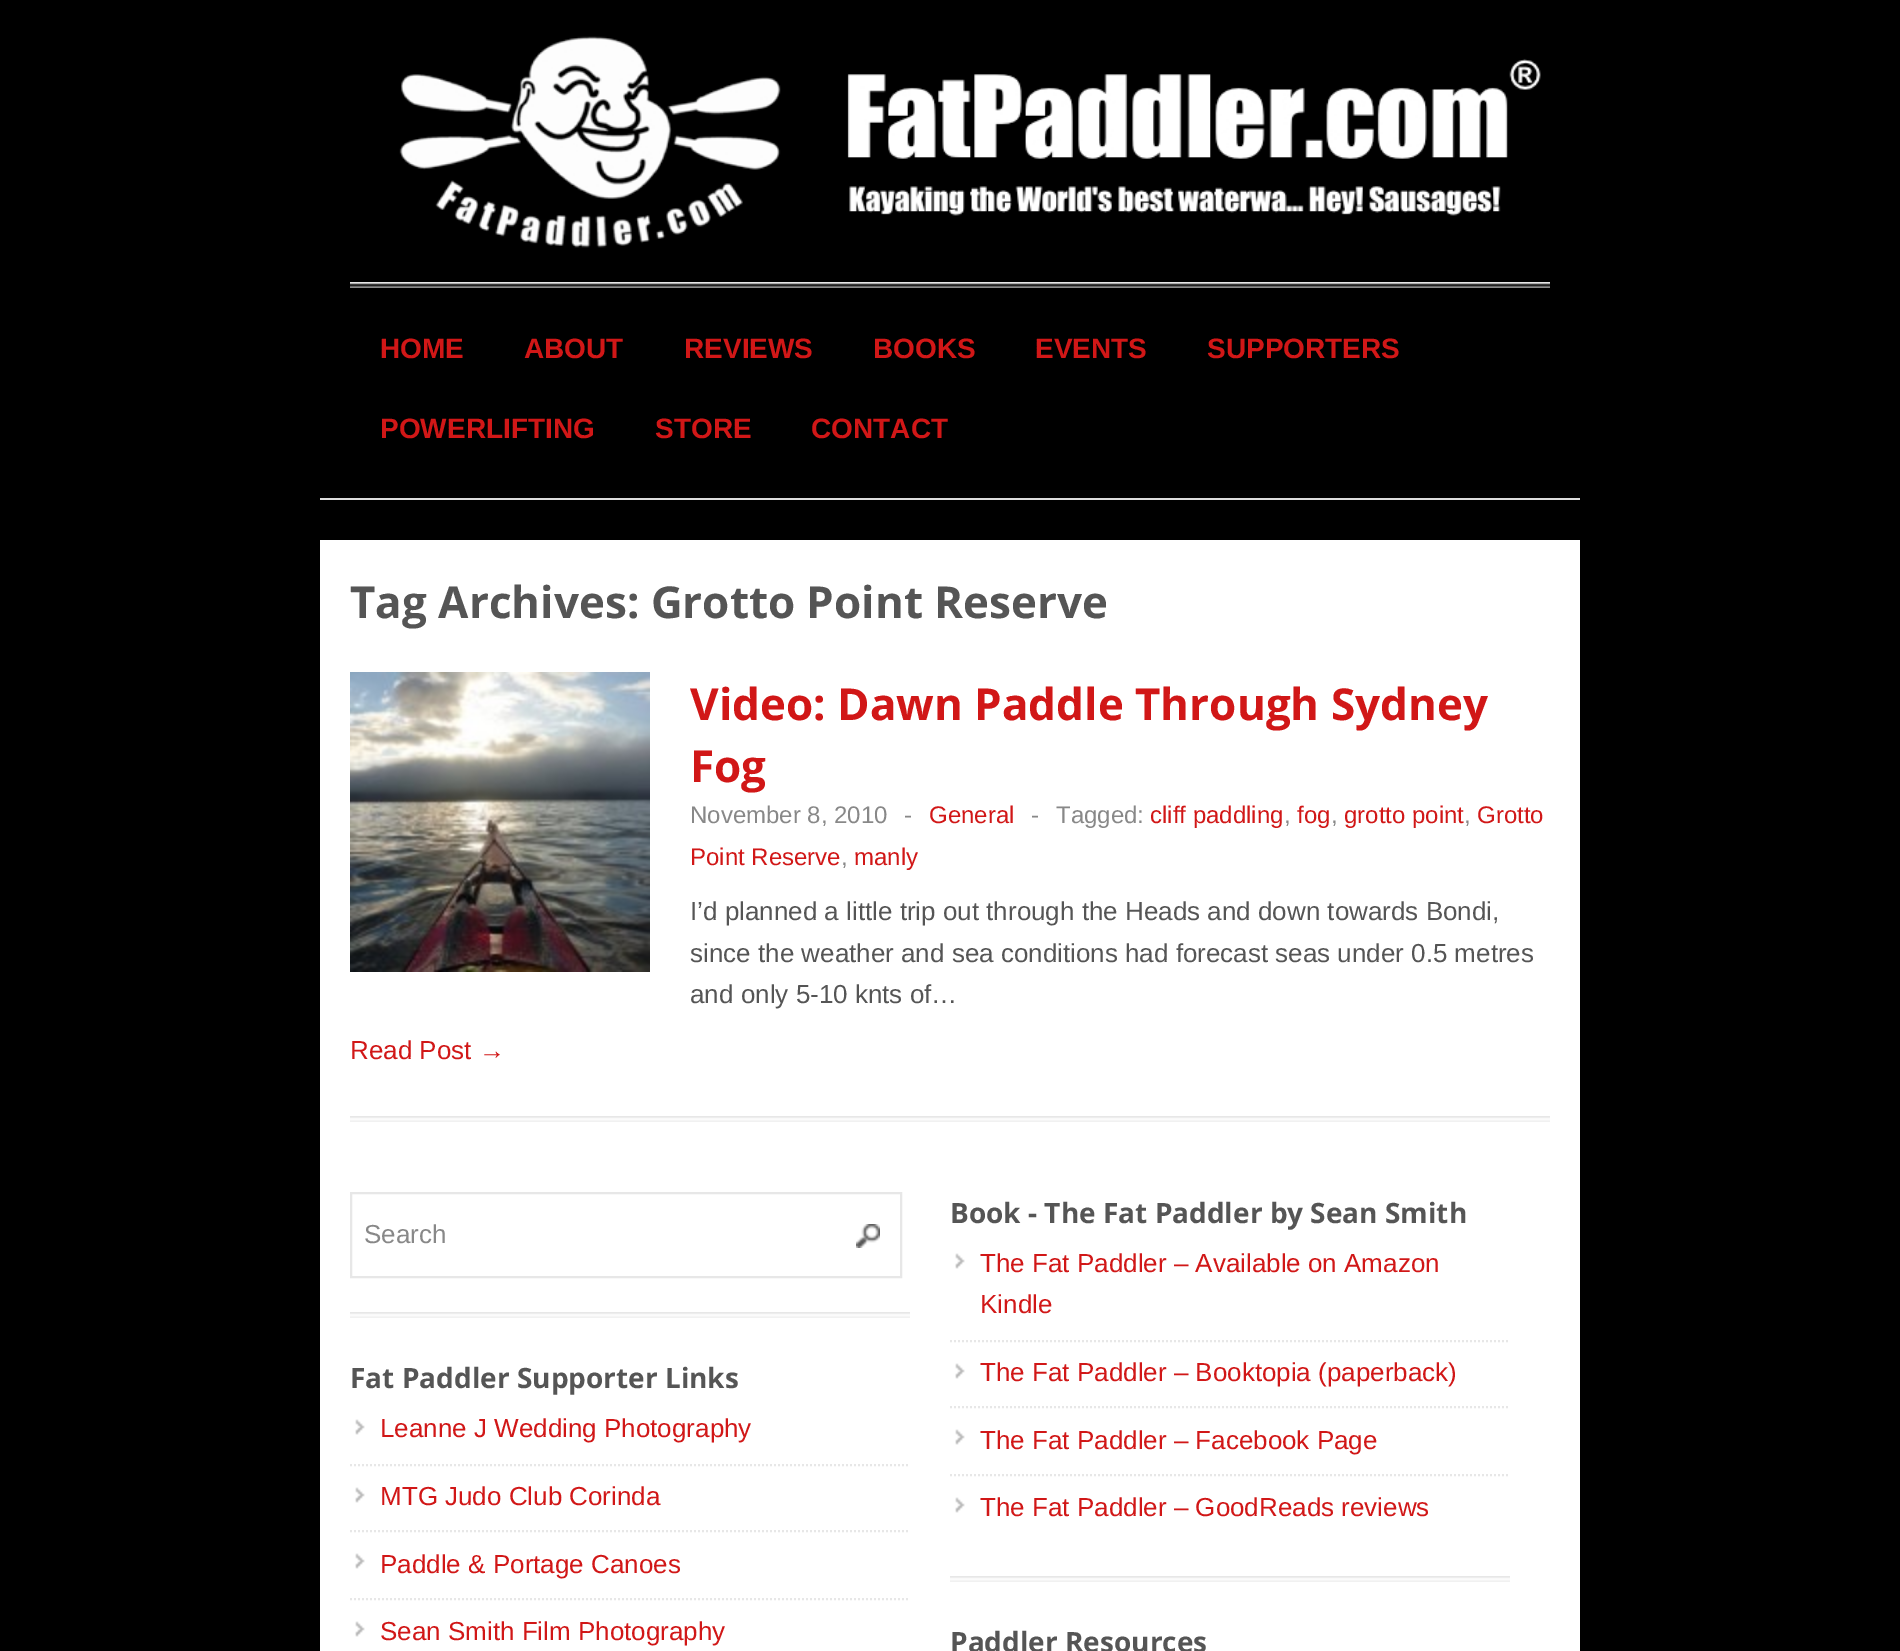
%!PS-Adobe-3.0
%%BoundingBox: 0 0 1900 1651
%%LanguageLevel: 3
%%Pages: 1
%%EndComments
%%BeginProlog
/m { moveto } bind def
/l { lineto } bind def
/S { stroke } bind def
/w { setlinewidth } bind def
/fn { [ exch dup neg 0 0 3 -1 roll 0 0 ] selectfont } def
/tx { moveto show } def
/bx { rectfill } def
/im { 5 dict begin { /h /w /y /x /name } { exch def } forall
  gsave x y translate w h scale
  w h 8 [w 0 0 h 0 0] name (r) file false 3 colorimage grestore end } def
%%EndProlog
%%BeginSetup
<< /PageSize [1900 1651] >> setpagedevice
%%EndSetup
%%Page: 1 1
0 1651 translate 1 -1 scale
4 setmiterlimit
0 setgray
0 0 1900 1651 bx
0.867 setgray
320 498 1260 2 bx
(image0.raw) 350 282 1200 6 im
(image1.raw) 399 36 1142 212 im
/LiberationSans-Bold 28 fn
0.82 0.09 0.09 setrgbcolor
(HOME) 380 358 tx
(ABOUT) 524 358 tx
(REVIEWS) 684 358 tx
(BOOKS) 873 358 tx
(EVENTS) 1035 358 tx
(SUPPORTERS) 1207 358 tx
(POWERLIFTING) 380 438 tx
(STORE) 655 438 tx
(CONTACT) 811 438 tx
1 setgray
320 540 1260 1111 bx
/OpenSans-Bold 44 fn
0.333 setgray
(Tag Archives: Grotto Point Reserve) 350 618 tx
(image2.raw) 350 1116 1200 6 im
(image3.raw) 350 672 300 300 im
0.82 0.09 0.09 setrgbcolor
(Video: Dawn Paddle Through Sydney) 690 720 tx
(Fog) 690 782 tx
/LiberationSans-Regular 24 fn
0.533 setgray
(November 8, 2010) 690 823 tx
(-) 904 823 tx
0.82 0.09 0.09 setrgbcolor
(General) 929 823 tx
0.533 setgray
(-) 1031 823 tx
(Tagged:) 1056 823 tx
0.82 0.09 0.09 setrgbcolor
(cliff paddling) 1150 823 tx
(fog) 1297 823 tx
(grotto point) 1344 823 tx
(Grotto) 1477 823 tx
0.533 setgray
(,) 1284 823 tx
(,) 1331 823 tx
(,) 1464 823 tx
0.82 0.09 0.09 setrgbcolor
(Point Reserve) 690 865 tx
0.533 setgray
(,) 841 865 tx
0.82 0.09 0.09 setrgbcolor
(manly) 854 865 tx
/LiberationSans-Regular 26 fn
0.333 setgray
(I’d planned a little trip out through the Heads and down towards Bondi,) 690 920 tx
(since the weather and sea conditions had forecast seas under 0.5 metres) 690 962 tx
(and only 5-10 knts of…) 690 1003 tx
0.82 0.09 0.09 setrgbcolor
(Read Post →) 350 1059 tx
(image4.raw) 350 1312 560 6 im
(image5.raw) 856 1224 24 24 im
0.906 setgray
2 w
351 1193 550 84 rectstroke
0.533 setgray
(Search) 364 1243 tx
(image4.raw) 950 1576 560 6 im
/OpenSans-Bold 28 fn
0.333 setgray
(Book - The Fat Paddler by Sean Smith) 950 1223 tx
(image6.raw) 955 1253 10 16 im
0.906 setgray
[2 2] 0 setdash
950 1341 m 1510 1341 l S
/LiberationSans-Regular 26 fn
0.82 0.09 0.09 setrgbcolor
(The Fat Paddler – Available on Amazon) 980 1272 tx
(Kindle) 980 1313 tx
(image6.raw) 955 1363 10 16 im
0.906 setgray
950 1407 m 1510 1407 l S
0.82 0.09 0.09 setrgbcolor
(The Fat Paddler – Booktopia \(paperback\)) 980 1381 tx
(image6.raw) 955 1429 10 16 im
0.906 setgray
950 1475 m 1510 1475 l S
0.82 0.09 0.09 setrgbcolor
(The Fat Paddler – Facebook Page) 980 1449 tx
(image6.raw) 955 1497 10 16 im
(The Fat Paddler – GoodReads reviews) 980 1516 tx
/OpenSans-Bold 28 fn
0.333 setgray
(Fat Paddler Supporter Links) 350 1388 tx
(image6.raw) 355 1419 10 16 im
0.906 setgray
350 1465 m 910 1465 l S
/LiberationSans-Regular 26 fn
0.82 0.09 0.09 setrgbcolor
(Leanne J Wedding Photography) 380 1437 tx
(image6.raw) 355 1487 10 16 im
0.906 setgray
350 1531 m 910 1531 l S
0.82 0.09 0.09 setrgbcolor
(MTG Judo Club Corinda) 380 1505 tx
(image6.raw) 355 1553 10 16 im
0.906 setgray
350 1599 m 910 1599 l S
0.82 0.09 0.09 setrgbcolor
(Paddle & Portage Canoes) 380 1573 tx
(image6.raw) 355 1621 10 16 im
(Sean Smith Film Photography) 380 1640 tx
/OpenSans-Bold 28 fn
0.333 setgray
(Paddler Resources) 950 1652 tx
showpage
%%EOF
